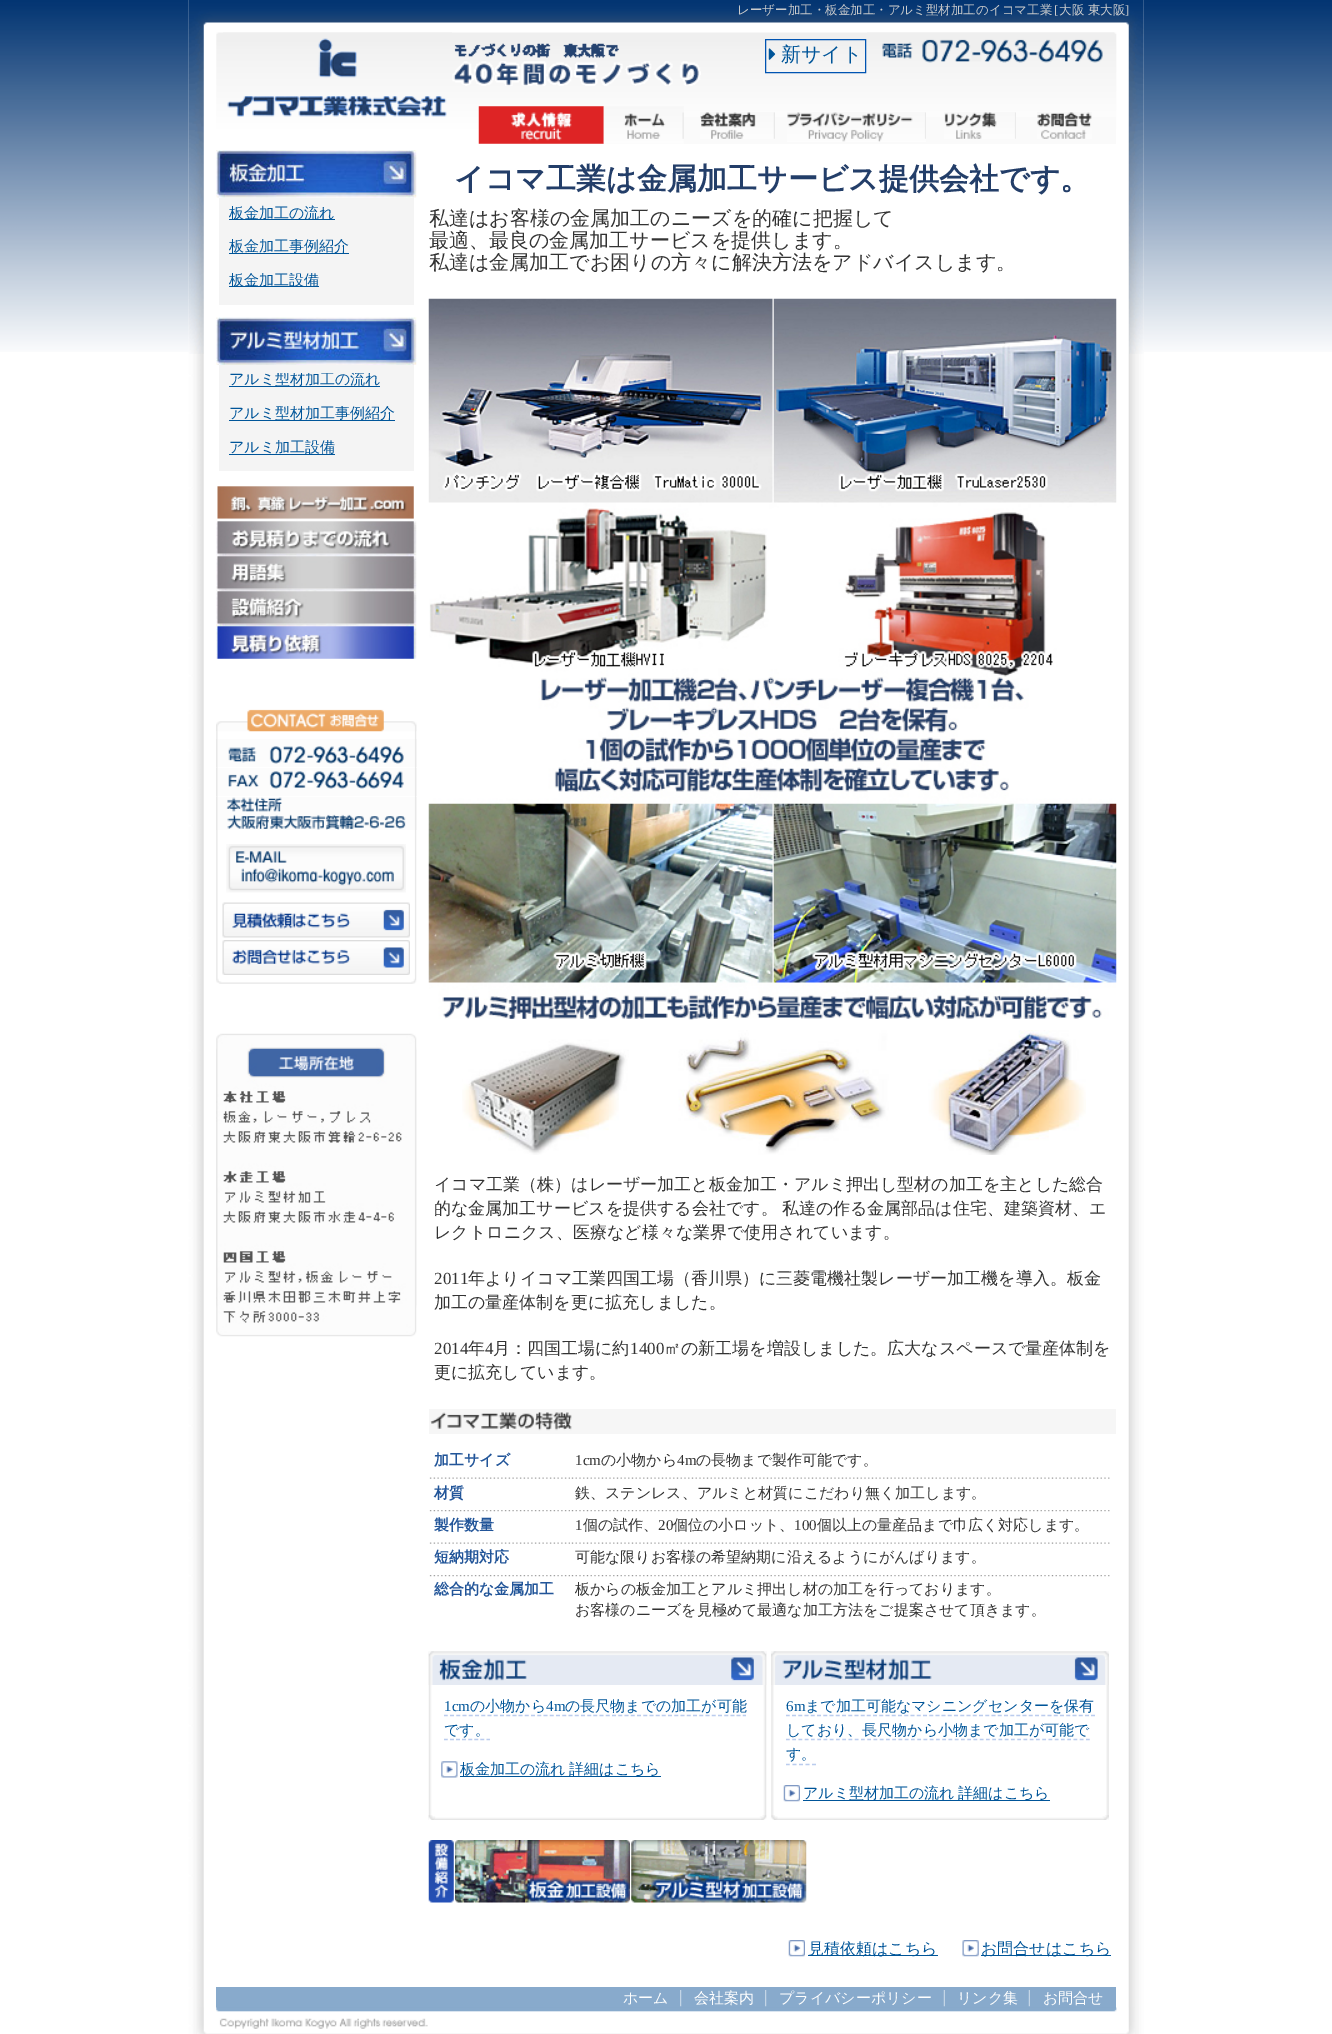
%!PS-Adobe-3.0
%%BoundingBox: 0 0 1332 2034
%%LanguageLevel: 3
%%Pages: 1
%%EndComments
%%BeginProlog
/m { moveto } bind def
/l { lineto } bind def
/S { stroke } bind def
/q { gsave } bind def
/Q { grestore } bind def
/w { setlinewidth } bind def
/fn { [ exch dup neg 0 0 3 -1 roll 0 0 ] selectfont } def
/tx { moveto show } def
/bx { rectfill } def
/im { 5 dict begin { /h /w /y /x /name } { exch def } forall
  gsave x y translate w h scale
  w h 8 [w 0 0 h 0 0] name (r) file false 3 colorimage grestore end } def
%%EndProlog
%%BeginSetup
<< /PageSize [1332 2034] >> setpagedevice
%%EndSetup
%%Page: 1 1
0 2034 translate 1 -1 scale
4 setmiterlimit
1 setgray
0 0 1332 2034 bx
(image0.raw) 0 0 1332 352 im
(image1.raw) 188 0 956 2034 im
(image2.raw) 188 0 956 354 im
/WenQuanYiZenHei-Medium 12.5 fn
0.8 setgray
(レーザー加工・板金加工・アルミ型材加工のイコマ工業) 737 14 tx
/LiberationSerif-Regular 12.5 fn
([) 1054 14 tx
/WenQuanYiZenHei-Medium 12.5 fn
(大阪 東大阪) 1059 14 tx
/LiberationSerif-Regular 12.5 fn
(]) 1125 14 tx
(image3.raw) 223 32 229 85 im
(image4.raw) 452 43 249 43 im
0 0.329 0.698 setrgbcolor
765.5 39.5 100 33 rectstroke
(image5.raw) 768 48 8 12 im
/WenQuanYiZenHei-Medium 20 fn
0 0.333 0.6 setrgbcolor
(新サイト) 781 61 tx
(image6.raw) 867 32 247 31 im
0.98 setgray
479 117 637 27 bx
(image7.raw) 478 106 126 38 im
(image8.raw) 603 106 81 38 im
(image9.raw) 700 112 75 27 im
(image10.raw) 787 112 139 30 im
(image11.raw) 944 112 72 27 im
(image12.raw) 1037 112 55 27 im
(image13.raw) 216 150 201 48 im
0.957 setgray
219 198 195 107 bx
0 0.333 0.6 setrgbcolor
229 219 106 1 bx
/WenQuanYiZenHei-Medium 15 fn
(板金加工の流れ) 229 218 tx
229 253 120 1 bx
q
229 239 185 16 rectclip
(板金加工事例紹介) 229 251 tx
Q
229 286 90 1 bx
q
229 273 185 17 rectclip
(板金加工設備) 229 285 tx
Q
(image14.raw) 216 317 201 48 im
0.957 setgray
219 365 195 106 bx
q
229 373 185 16 rectclip
0 0.333 0.6 setrgbcolor
(アルミ型材加工の流れ) 229 384 tx
Q
0 0.333 0.6 setrgbcolor
229 386 151 1 bx
229 420 166 1 bx
q
229 406 185 17 rectclip
(アルミ型材加工事例紹介) 229 418 tx
Q
q
229 440 185 16 rectclip
(アルミ加工設備) 229 452 tx
Q
229 454 106 1 bx
(image15.raw) 217 486 197 33 im
(image16.raw) 216 518 201 36 im
(image17.raw) 216 553 201 36 im
(image18.raw) 216 588 201 36 im
(image19.raw) 216 623 201 36 im
(image20.raw) 216 721 201 263 im
(image21.raw) 216 709 201 23 im
(image22.raw) 216 739 201 28 im
(image23.raw) 216 768 201 28 im
(image24.raw) 216 797 201 33 im
(image25.raw) 226 844 180 49 im
(image26.raw) 222 902 188 36 im
(image27.raw) 222 940 188 35 im
(image20.raw) 216 1046 201 263 im
(image28.raw) 216 1033 201 304 im
/WenQuanYiZenHei-Bold 30 fn
0.137 0.243 0.412 setrgbcolor
(イコマ工業は金属加工サービス提供会社です。) 454 189 tx
/WenQuanYiZenHei-Medium 20 fn
0.2 setgray
(私達はお客様の金属加工のニーズを的確に把握して) 429 225 tx
(最適、最良の金属加工サービスを提供します。) 429 247 tx
(私達は金属加工でお困りの方々に解決方法をアドバイスします。) 429 269 tx
(image29.raw) 428 298 689 722 im
(image30.raw) 462 1030 624 125 im
/WenQuanYiZenHei-Medium 17 fn
(イコマ工業（株）はレーザー加工と板金加工・アルミ押出し型材の加工を主とした総合) 434 1190 tx
434 1214 m -1 0 32 (的な金属加工サービスを提供する会社です。 私達の作る金属部品は住宅、建築資材、エ) widthshow
(レクトロニクス、医療など様々な業界で使用されています。) 434 1238 tx
/LiberationSerif-Regular 17 fn
(2011) 434 1284 tx
/WenQuanYiZenHei-Medium 17 fn
(年よりイコマ工業四国工場（香川県）に三菱電機社製レーザー加工機を導入。板金) 468 1284 tx
(加工の量産体制を更に拡充しました。) 434 1308 tx
/LiberationSerif-Regular 17 fn
(2014) 434 1354 tx
/WenQuanYiZenHei-Medium 17 fn
(年) 468 1354 tx
/LiberationSerif-Regular 17 fn
(4) 485 1354 tx
/WenQuanYiZenHei-Medium 17 fn
(月：四国工場に約) 493 1354 tx
/LiberationSerif-Regular 17 fn
(1400) 630 1354 tx
/WenQuanYiZenHei-Medium 17 fn
(㎡の新工場を増設しました。広大なスペースで量産体制を) 664 1354 tx
(更に拡充しています。) 434 1378 tx
0.965 setgray
429 1409 687 25 bx
(image31.raw) 430 1412 142 19 im
/WenQuanYiZenHei-Bold 15 fn
0.133 0.333 0.6 setrgbcolor
(加工サイズ) 434 1465 tx
/LiberationSerif-Regular 15 fn
0.2 setgray
(1cm) 575 1465 tx
/WenQuanYiZenHei-Medium 15 fn
(の小物から) 601 1465 tx
/LiberationSerif-Regular 15 fn
(4m) 677 1465 tx
/WenQuanYiZenHei-Medium 15 fn
(の長物まで製作可能です。) 696 1465 tx
(image32.raw) 429 1477 141 2 im
/WenQuanYiZenHei-Bold 15 fn
0.133 0.333 0.6 setrgbcolor
(材質) 434 1498 tx
(image33.raw) 571 1477 539 2 im
/WenQuanYiZenHei-Medium 15 fn
0.2 setgray
(鉄、ステンレス、アルミと材質にこだわり無く加工します。) 575 1498 tx
(image34.raw) 429 1510 141 2 im
/WenQuanYiZenHei-Bold 15 fn
0.133 0.333 0.6 setrgbcolor
(製作数量) 434 1530 tx
(image35.raw) 571 1510 539 2 im
/LiberationSerif-Regular 15 fn
0.2 setgray
(1) 575 1530 tx
/WenQuanYiZenHei-Medium 15 fn
(個の試作、) 583 1530 tx
/LiberationSerif-Regular 15 fn
(20) 658 1530 tx
/WenQuanYiZenHei-Medium 15 fn
(個位の小ロット、) 673 1530 tx
/LiberationSerif-Regular 15 fn
(100) 794 1530 tx
/WenQuanYiZenHei-Medium 15 fn
(個以上の量産品まで巾広く対応します。) 817 1530 tx
(image32.raw) 429 1542 141 2 im
/WenQuanYiZenHei-Bold 15 fn
0.133 0.333 0.6 setrgbcolor
(短納期対応) 434 1562 tx
(image33.raw) 571 1542 539 2 im
/WenQuanYiZenHei-Medium 15 fn
0.2 setgray
(可能な限りお客様の希望納期に沿えるようにがんばります。) 575 1562 tx
(image34.raw) 429 1575 141 2 im
/WenQuanYiZenHei-Bold 15 fn
0.133 0.333 0.6 setrgbcolor
(総合的な金属加工) 434 1594 tx
(image35.raw) 571 1575 539 2 im
/WenQuanYiZenHei-Medium 15 fn
0.2 setgray
(板からの板金加工とアルミ押出し材の加工を行っております。) 575 1594 tx
(お客様のニーズを見極めて最適な加工方法をご提案させて頂きます。) 575 1615 tx
(image36.raw) 428 1651 681 169 im
(image37.raw) 428 1651 339 34 im
/LiberationSerif-Regular 15 fn
0 0.333 0.6 setrgbcolor
(1cm) 444 1711 tx
0.733 0.8 0.933 setrgbcolor
1.2 w
[3.75 2.48] 0 setdash
444 1715.5 m 746 1715.5 l S
/WenQuanYiZenHei-Medium 15 fn
0 0.333 0.6 setrgbcolor
(の小物から) 470 1711 tx
/LiberationSerif-Regular 15 fn
(4m) 546 1711 tx
/WenQuanYiZenHei-Medium 15 fn
(の長尺物までの加工が可能) 565 1711 tx
(です。) 444 1735 tx
0.733 0.8 0.933 setrgbcolor
[3.75 2.33] 0 setdash
444 1739.5 m 490 1739.5 l S
(image38.raw) 441 1761 17 17 im
0 0.333 0.6 setrgbcolor
460 1776 201 1 bx
460 1774 m -1 0 32 (板金加工の流れ 詳細はこちら) widthshow
(image39.raw) 771 1651 338 34 im
/LiberationSerif-Regular 15 fn
(6m) 786 1711 tx
0.733 0.8 0.933 setrgbcolor
[3.75 2.48] 0 setdash
786 1715.5 m 1095 1715.5 l S
/WenQuanYiZenHei-Medium 15 fn
0 0.333 0.6 setrgbcolor
(まで加工可能なマシニングセンターを保有) 805 1711 tx
(しており、長尺物から小物まで加工が可能で) 786 1735 tx
0.733 0.8 0.933 setrgbcolor
[3.75 2.5] 0 setdash
786 1739.5 m 1090 1739.5 l S
0 0.333 0.6 setrgbcolor
(す。) 786 1759 tx
0.733 0.8 0.933 setrgbcolor
[3.75 2.81] 0 setdash
786 1764.5 m 816 1764.5 l S
(image40.raw) 783 1785 17 17 im
0 0.333 0.6 setrgbcolor
803 1800 247 1 bx
803 1798 m -1 0 32 (アルミ型材加工の流れ 詳細はこちら) widthshow
(image41.raw) 428 1815 681 5 im
(image42.raw) 428 1840 26 63 im
(image43.raw) 455 1840 175 63 im
(image44.raw) 631 1840 176 63 im
(image40.raw) 788 1940 17 17 im
808 1955 130 1 bx
/WenQuanYiZenHei-Medium 16 fn
(見積依頼はこちら) 808 1954 tx
(image45.raw) 962 1940 17 17 im
981 1955 130 1 bx
(お問合せはこちら) 981 1954 tx
0.533 0.667 0.8 setrgbcolor
216 1987 900 21 bx
(image46.raw) 680 1990 2 17 im
/WenQuanYiZenHei-Medium 15 fn
1 setgray
(ホーム) 623 2003 tx
(image46.raw) 765 1990 2 17 im
(会社案内) 694 2003 tx
(image47.raw) 943 1990 2 17 im
(プライバシーポリシー) 779 2003 tx
(image47.raw) 1028 1990 2 17 im
(リンク集) 957 2003 tx
(お問合せ) 1043 2003 tx
(image48.raw) 197 2007 938 27 im
showpage
%%EOF
